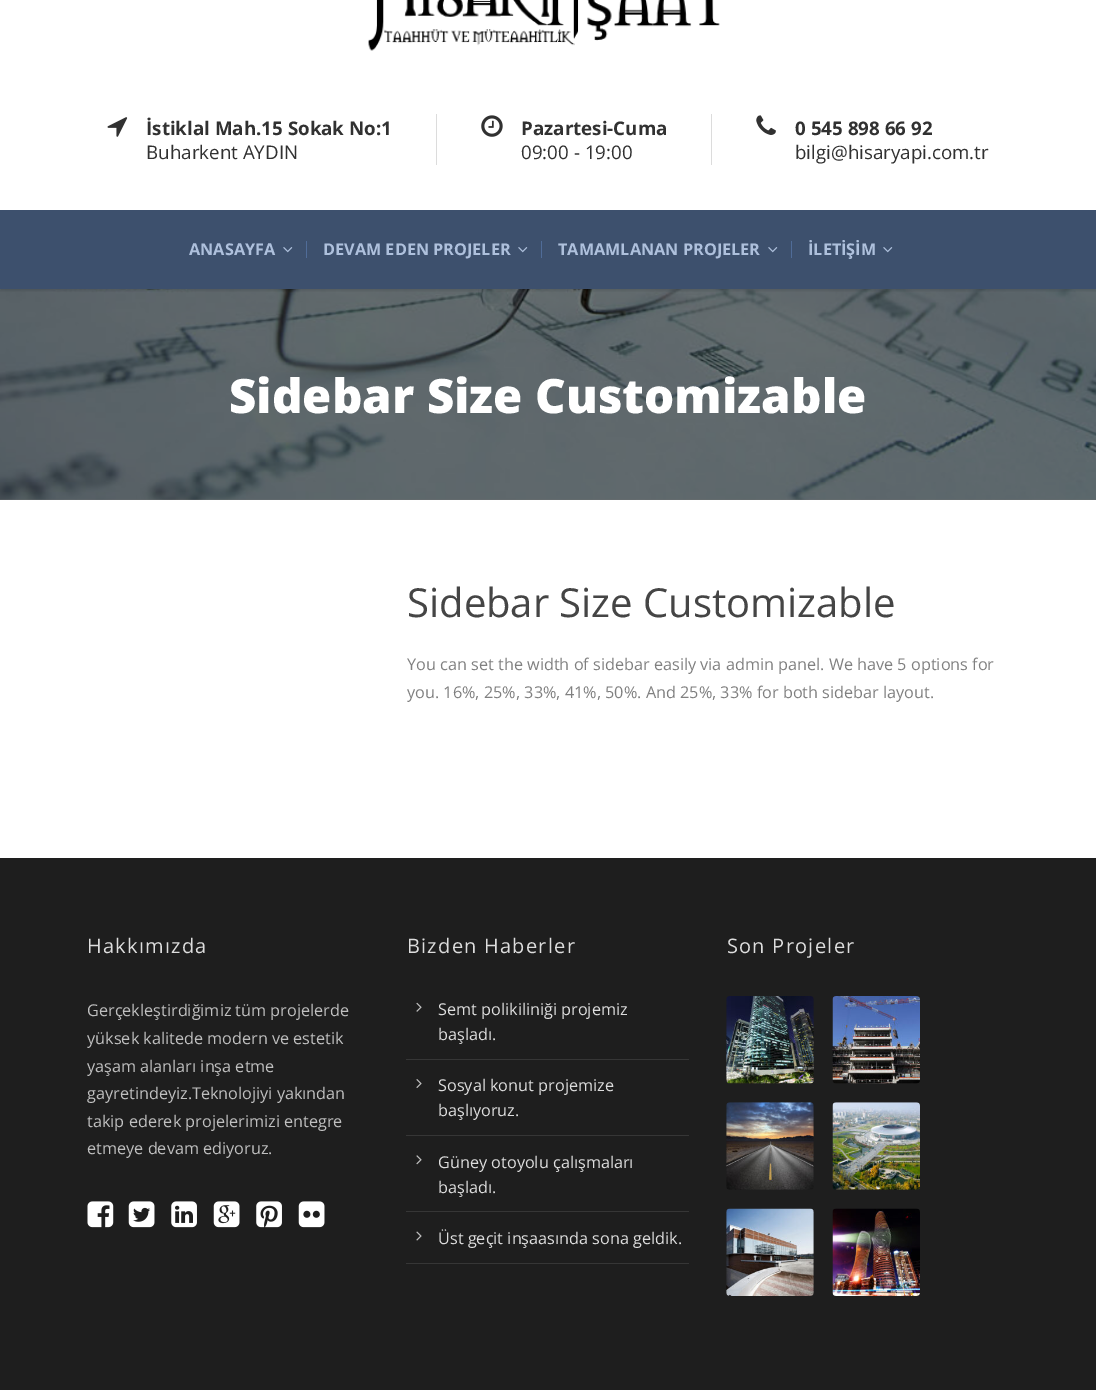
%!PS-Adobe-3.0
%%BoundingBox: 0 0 1096 1390
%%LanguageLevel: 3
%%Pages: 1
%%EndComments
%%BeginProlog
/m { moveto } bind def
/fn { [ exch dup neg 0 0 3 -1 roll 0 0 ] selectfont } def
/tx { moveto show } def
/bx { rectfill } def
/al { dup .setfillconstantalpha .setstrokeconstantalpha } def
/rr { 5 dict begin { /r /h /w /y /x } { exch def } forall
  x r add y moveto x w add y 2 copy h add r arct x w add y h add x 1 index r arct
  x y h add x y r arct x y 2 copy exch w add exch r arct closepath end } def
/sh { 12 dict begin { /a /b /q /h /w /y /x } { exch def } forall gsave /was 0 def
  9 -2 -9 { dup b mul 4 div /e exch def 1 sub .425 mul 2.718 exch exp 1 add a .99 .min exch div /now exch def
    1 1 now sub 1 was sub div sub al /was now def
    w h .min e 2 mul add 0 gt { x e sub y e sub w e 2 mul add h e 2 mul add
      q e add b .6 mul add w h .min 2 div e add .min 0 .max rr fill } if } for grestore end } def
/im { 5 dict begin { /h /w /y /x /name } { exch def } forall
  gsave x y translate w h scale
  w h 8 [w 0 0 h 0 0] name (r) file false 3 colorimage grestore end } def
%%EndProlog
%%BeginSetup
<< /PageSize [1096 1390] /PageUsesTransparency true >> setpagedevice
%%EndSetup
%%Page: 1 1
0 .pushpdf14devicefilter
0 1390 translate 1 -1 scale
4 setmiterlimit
1 setgray
0 0 1096 1390 bx
(image0.raw) 368 0 352 51 im
(image1.raw) 107 117 21 20 im
/OpenSans-Bold 18.75 fn
0.192 setgray
(İstiklal Mah.15 Sokak No:1) 146 135 tx
/OpenSans-Regular 18.75 fn
(Buharkent AYDIN) 146 159 tx
0.863 setgray
436 114 1 51 bx
(image2.raw) 481 115 22 22 im
/OpenSans-Bold 18.75 fn
0.192 setgray
(Pazartesi-Cuma) 521 135 tx
/OpenSans-Regular 18.75 fn
(09:00 - 19:00) 521 159 tx
0.863 setgray
711 114 1 51 bx
(image3.raw) 756 115 20 20 im
/OpenSans-Bold 18.75 fn
0.192 setgray
(0 545 898 66 92) 795 135 tx
/OpenSans-Regular 18.75 fn
(bilgi@hisaryapi.com.tr) 795 159 tx
(image5.raw) 0 289 1096 211 im
0 setgray
0 213 1096 78 0 1 0.12 sh
0.239 0.314 0.427 setrgbcolor
0 210 1096 79 bx
/OpenSans-Bold 16.25 fn
0.682 0.753 0.863 setrgbcolor
(ANASAYFA) 189 255 tx
(image4.raw) 283 247 10 6 im
0.314 0.424 0.596 setrgbcolor
306 241 1 17 bx
0.682 0.753 0.863 setrgbcolor
(DEVAM EDEN PROJELER) 323 255 tx
(image4.raw) 518 247 10 6 im
0.314 0.424 0.596 setrgbcolor
541 241 1 17 bx
0.682 0.753 0.863 setrgbcolor
(TAMAMLANAN PROJELER) 558 255 tx
(image4.raw) 768 247 10 6 im
0.314 0.424 0.596 setrgbcolor
791 241 1 17 bx
0.682 0.753 0.863 setrgbcolor
(İLETİŞİM) 808 255 tx
(image4.raw) 883 247 10 6 im
/OpenSans-ExtraBold 47.5 fn
1 setgray
(Sidebar Size Customizable) 229 413 tx
/OpenSans-Regular 40 fn
0.271 setgray
(Sidebar Size Customizable) 407 617 tx
/OpenSans-Regular 16.25 fn
0.502 setgray
(You can set the width of sidebar easily via admin panel. We have 5 options for) 407 670 tx
(you. 16%, 25%, 33%, 41%, 50%. And 25%, 33% for both sidebar layout.) 407 698 tx
0.118 setgray
0 858 1096 532 bx
/OpenSans-Regular 20 fn
0.867 setgray
87 953 m 1.25 0 (Hakkımızda) ashow
/OpenSans-Regular 16.25 fn
0.749 setgray
(Gerçekleştirdiğimiz tüm projelerde) 87 1016 tx
(yüksek kalitede modern ve estetik) 87 1044 tx
(yaşam alanları inşa etme) 87 1072 tx
(gayretindeyiz.Teknolojiyi yakından) 87 1099 tx
(takip ederek projelerimizi entegre) 87 1127 tx
(etmeye devam ediyoruz.) 87 1154 tx
(image6.raw) 87 1201 27 27 im
(image7.raw) 128 1201 27 27 im
(image8.raw) 171 1201 26 27 im
(image9.raw) 213 1201 27 27 im
(image10.raw) 256 1201 26 27 im
(image11.raw) 298 1201 27 27 im
/OpenSans-Regular 20 fn
0.867 setgray
407 953 m 1.25 0 (Bizden Haberler) ashow
0.212 setgray
406 1059 283 1 bx
(image12.raw) 416 1002 6 10 im
/OpenSans-Regular 16.25 fn
0.867 setgray
(Semt polikiliniği projemiz) 438 1015 tx
(başladı.) 438 1040 tx
0.212 setgray
406 1135 283 1 bx
(image13.raw) 416 1079 6 9 im
0.867 setgray
(Sosyal konut projemize) 438 1091 tx
(başlıyoruz.) 438 1116 tx
0.212 setgray
406 1211 283 1 bx
(image14.raw) 416 1155 6 10 im
0.867 setgray
(Güney otoyolu çalışmaları) 438 1168 tx
(başladı.) 438 1193 tx
0.212 setgray
406 1263 283 1 bx
(image15.raw) 416 1231 6 10 im
0.867 setgray
(Üst geçit inşaasında sona geldik.) 438 1244 tx
/OpenSans-Regular 20 fn
727 953 m 1.25 0 (Son Projeler) ashow
(image16.raw) 726 996 88 88 im
(image17.raw) 832 996 88 88 im
(image18.raw) 726 1102 88 88 im
(image19.raw) 832 1102 88 88 im
(image20.raw) 726 1208 88 88 im
(image21.raw) 832 1208 88 88 im
.poppdf14devicefilter showpage
%%EOF
